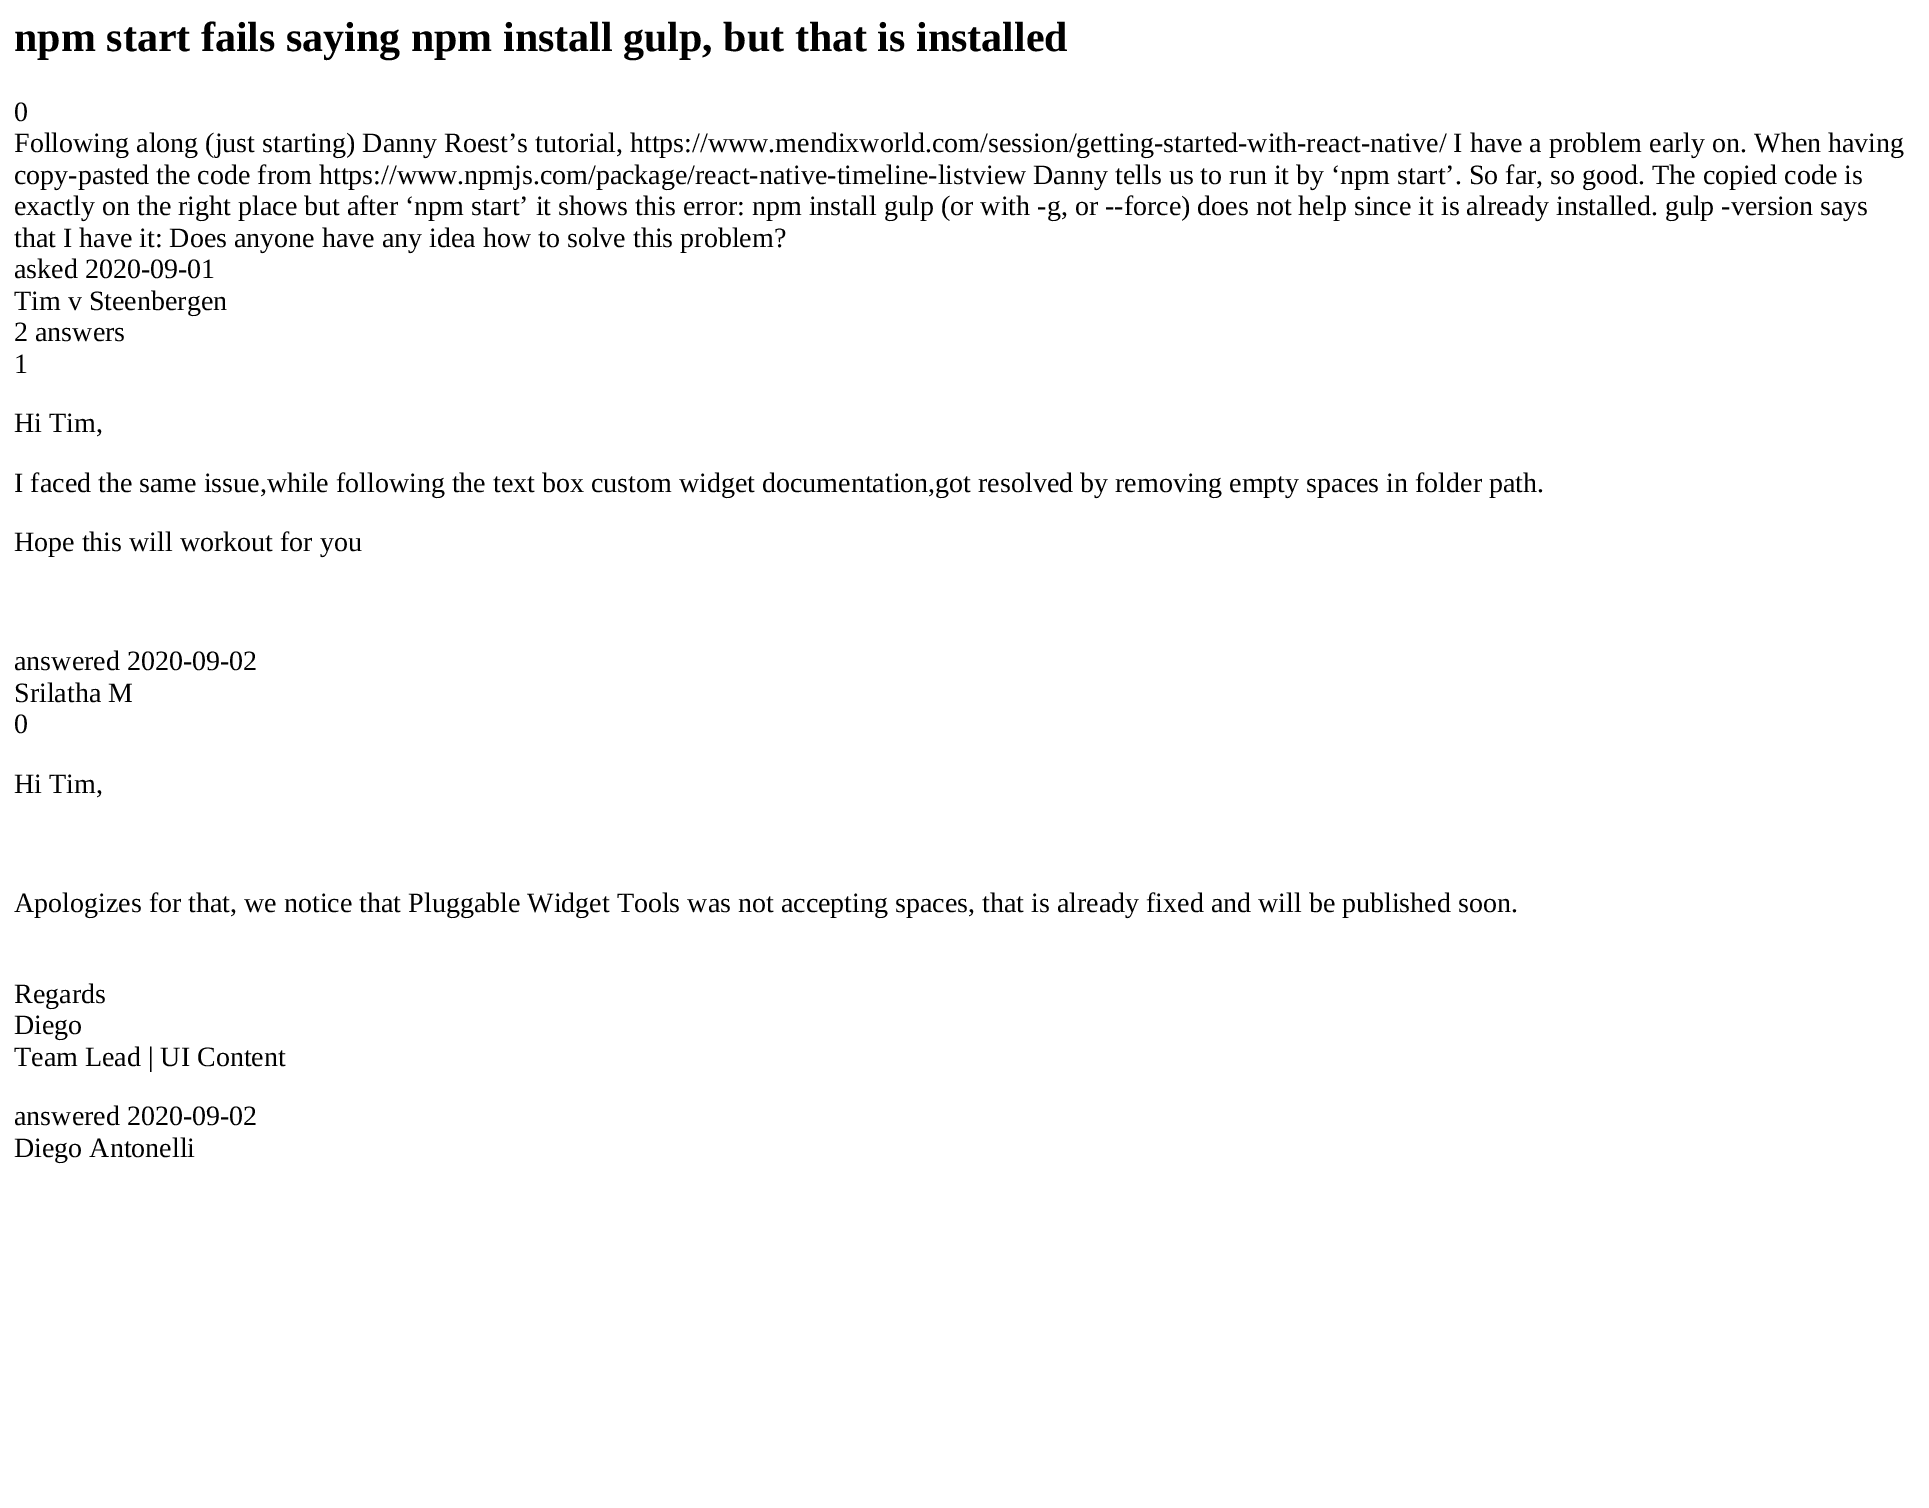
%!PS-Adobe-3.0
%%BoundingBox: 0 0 1929 1508
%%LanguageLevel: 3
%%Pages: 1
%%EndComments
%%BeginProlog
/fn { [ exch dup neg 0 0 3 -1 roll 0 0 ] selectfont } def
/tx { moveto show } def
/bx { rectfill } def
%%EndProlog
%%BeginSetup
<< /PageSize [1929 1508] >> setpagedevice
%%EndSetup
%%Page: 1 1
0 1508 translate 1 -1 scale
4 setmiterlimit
1 setgray
0 0 1929 1508 bx
/LiberationSerif-Bold 42 fn
0 setgray
(npm start fails saying npm install gulp, but that is installed) 14 51 tx
/LiberationSerif-Regular 28 fn
(0) 14 121 tx
(Following along \(just starting\) Danny Roest’s tutorial, https://www.mendixworld.com/session/getting-started-with-react-native/ I have a problem early on. When having) 14 152 tx
(copy-pasted the code from https://www.npmjs.com/package/react-native-timeline-listview Danny tells us to run it by ‘npm start’. So far, so good. The copied code is) 14 184 tx
(exactly on the right place but after ‘npm start’ it shows this error: npm install gulp \(or with -g, or --force\) does not help since it is already installed. gulp -version says) 14 215 tx
(that I have it: Does anyone have any idea how to solve this problem?) 14 247 tx
(asked 2020-09-01) 14 278 tx
(Tim v Steenbergen) 14 310 tx
(2 answers) 14 341 tx
(1) 14 373 tx
(Hi Tim,) 14 432 tx
(I faced the same issue,while following the text box custom widget documentation,got resolved by removing empty spaces in folder path.) 14 492 tx
(Hope this will workout for you) 14 551 tx
(answered 2020-09-02) 14 670 tx
(Srilatha M) 14 702 tx
(0) 14 733 tx
(Hi Tim,) 14 793 tx
(Apologizes for that, we notice that Pluggable Widget Tools was not accepting spaces, that is already fixed and will be published soon.) 14 912 tx
(Regards) 14 1003 tx
(Diego) 14 1034 tx
(Team Lead | UI Content) 14 1066 tx
(answered 2020-09-02) 14 1125 tx
(Diego Antonelli) 14 1157 tx
showpage
%%EOF
